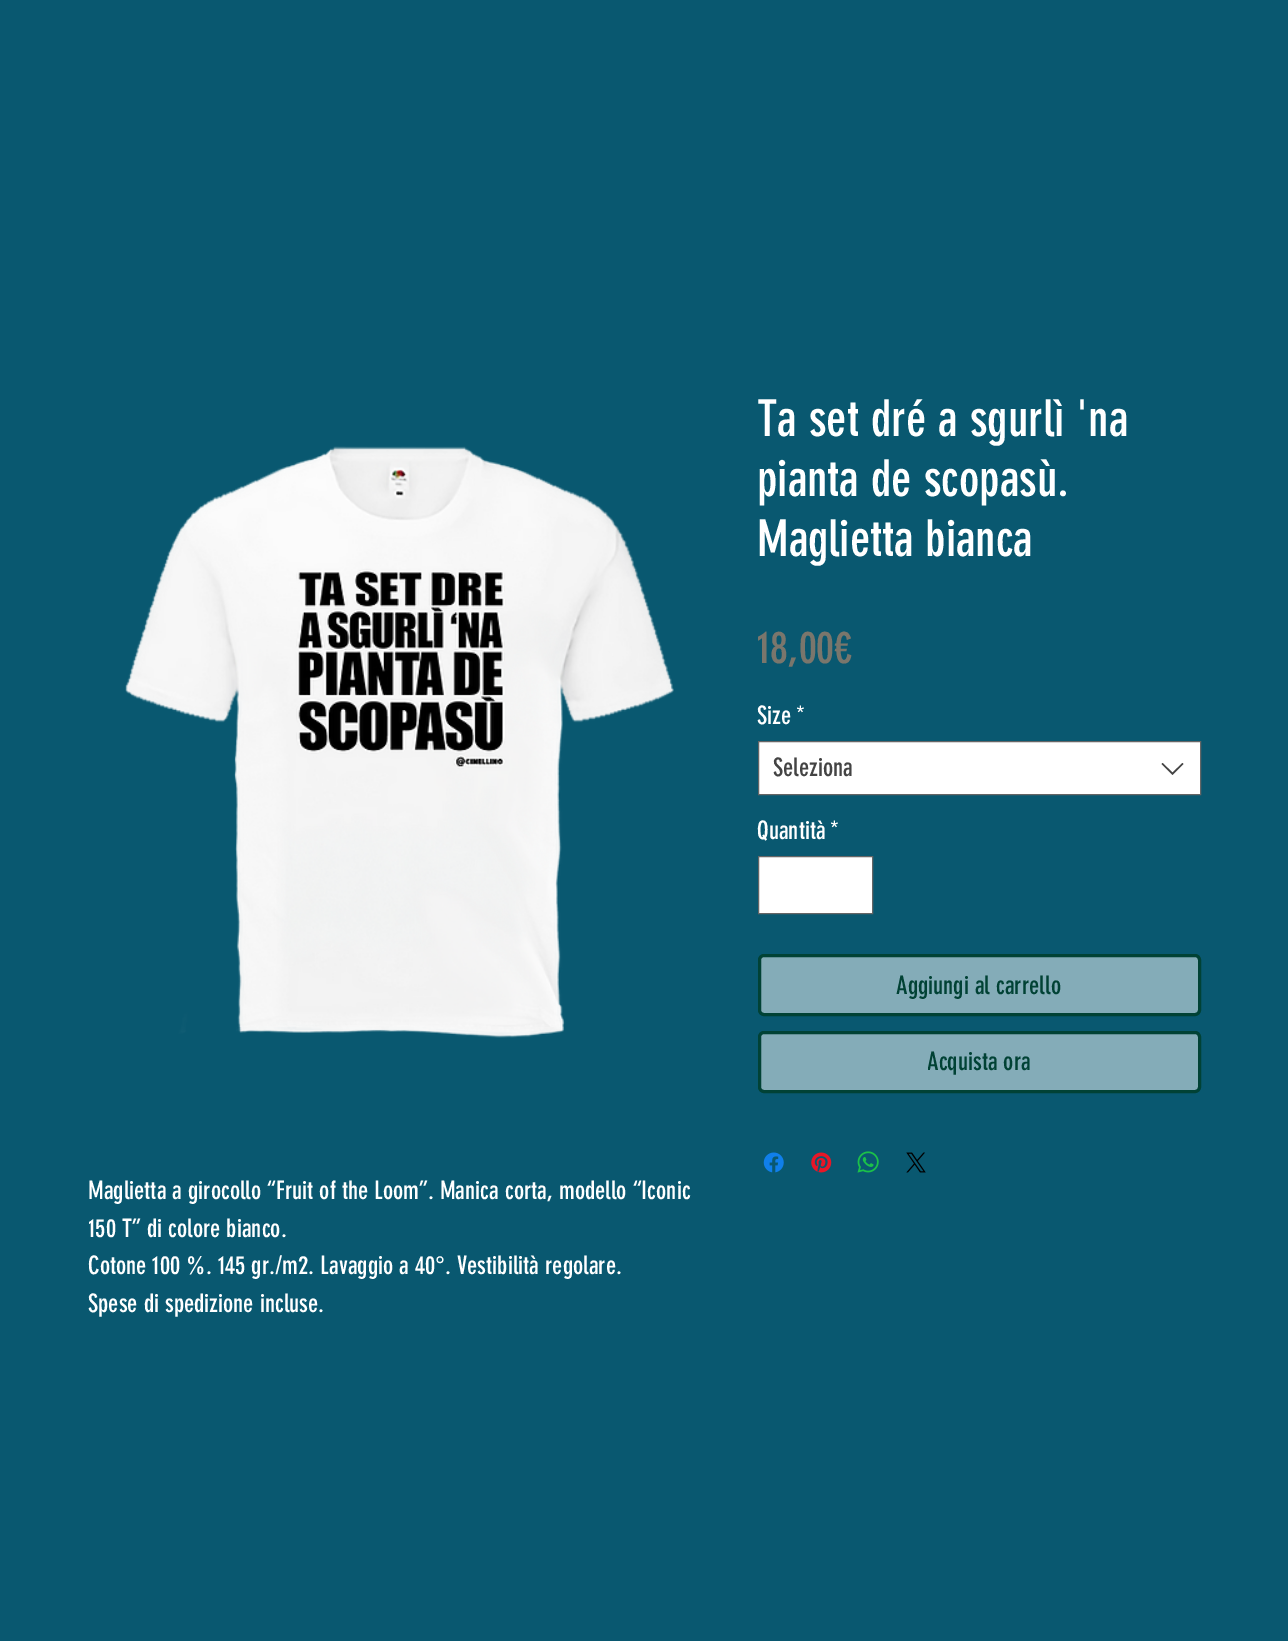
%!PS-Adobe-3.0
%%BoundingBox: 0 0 1288 1641
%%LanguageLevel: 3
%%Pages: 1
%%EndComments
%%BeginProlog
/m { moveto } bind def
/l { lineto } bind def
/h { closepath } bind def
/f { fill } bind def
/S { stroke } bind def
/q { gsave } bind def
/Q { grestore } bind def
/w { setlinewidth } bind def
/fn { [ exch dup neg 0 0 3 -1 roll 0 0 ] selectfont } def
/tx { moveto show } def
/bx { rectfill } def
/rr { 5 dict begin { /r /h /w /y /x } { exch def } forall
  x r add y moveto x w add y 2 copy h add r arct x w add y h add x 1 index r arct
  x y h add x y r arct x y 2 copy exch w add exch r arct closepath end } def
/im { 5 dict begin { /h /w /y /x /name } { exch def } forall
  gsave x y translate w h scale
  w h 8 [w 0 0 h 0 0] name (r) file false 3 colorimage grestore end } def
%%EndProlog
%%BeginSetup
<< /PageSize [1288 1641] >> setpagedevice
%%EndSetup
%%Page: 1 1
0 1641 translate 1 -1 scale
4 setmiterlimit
0.035 0.345 0.439 setrgbcolor
0 0 1288 1641 bx
/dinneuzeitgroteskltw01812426-Regular 50 fn
1 setgray
(Ta set dré a sgurlì 'na) 757 436 tx
(pianta de scopasù.) 757 496 tx
(Maglietta bianca) 757 556 tx
/dinneuzeitgroteskltw01812426-Regular 44 fn
0.478 0.463 0.424 setrgbcolor
(18,00€) 757 663 tx
/dinneuzeitgroteskltw01812426-Regular 25 fn
1 setgray
(Size) 757 724 tx
(*) 796 724 tx
758.5 741.5 m 1200.5 741.5 l 1200.5 794.5 l 758.5 794.5 l h q f Q
0.4 setgray
S
0.267 setgray
(Seleziona) 773 776 tx
1182.5 763 m 1183.5 764 l 1172.5 775 l 1161.5 764 l 1162.5 763 l 1172.5 772.5 l h eofill
1 setgray
(Quantità) 757 839 tx
(*) 830 839 tx
758.5 856.5 m 872.5 856.5 l 872.5 913.5 l 758.5 913.5 l h q f Q
0.4 setgray
S
0.518 0.675 0.722 setrgbcolor
759.5 955.5 440 59 4.5 rr q f Q
0.004 0.259 0.208 setrgbcolor
3 w
S
(Aggiungi al carrello) 896 994 tx
0.518 0.675 0.722 setrgbcolor
759.5 1032.5 440 59 4.5 rr q f Q
0.004 0.259 0.208 setrgbcolor
S
q
928 1046 102 32 rectclip
(Acquista ora) 927 1070 tx
Q
(image0.raw) 763 1152 21 21 im
(image1.raw) 811 1152 21 21 im
(image2.raw) 857 1151 22 22 im
(image3.raw) 906 1152 20 21 im
(image4.raw) 125 446 549 592 im
1 setgray
(Maglietta a girocollo “Fruit of the Loom”. Manica corta, modello “Iconic) 88 1199 tx
q
89 1171 625 150 rectclip
(150 T” di colore bianco.) 88 1237 tx
Q
(Cotone 100 %. 145 gr./m2. Lavaggio a 40°. Vestibilità regolare.) 88 1274 tx
(Spese di spedizione incluse.) 88 1312 tx
showpage
%%EOF
